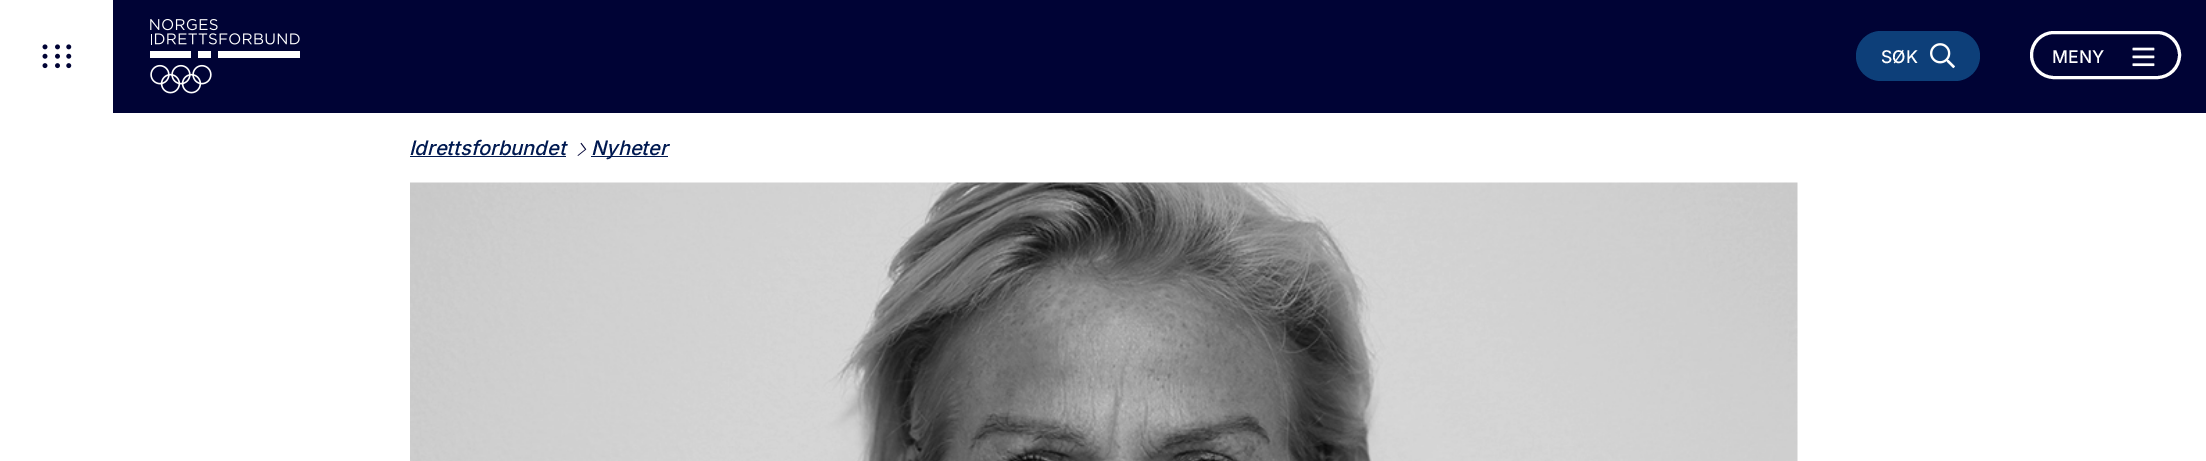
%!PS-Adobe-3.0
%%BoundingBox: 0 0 2206 461
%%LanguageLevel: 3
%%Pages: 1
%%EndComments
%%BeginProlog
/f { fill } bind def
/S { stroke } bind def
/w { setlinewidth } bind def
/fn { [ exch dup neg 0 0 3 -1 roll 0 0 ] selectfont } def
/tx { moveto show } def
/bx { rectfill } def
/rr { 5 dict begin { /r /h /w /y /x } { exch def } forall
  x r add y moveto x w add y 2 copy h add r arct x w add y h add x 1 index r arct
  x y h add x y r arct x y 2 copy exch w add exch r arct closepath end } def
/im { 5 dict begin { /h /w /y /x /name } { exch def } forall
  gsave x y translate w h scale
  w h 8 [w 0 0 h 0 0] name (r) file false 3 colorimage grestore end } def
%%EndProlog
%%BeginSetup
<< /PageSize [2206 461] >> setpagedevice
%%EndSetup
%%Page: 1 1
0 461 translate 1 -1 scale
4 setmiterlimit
1 setgray
0 0 2206 461 bx
0 0.012 0.208 setrgbcolor
113 0 2093 113 bx
(image0.raw) 42 44 6 25 im
(image1.raw) 55 44 5 25 im
(image2.raw) 66 44 6 25 im
(image3.raw) 150 19 150 75 im
0.051 0.247 0.475 setrgbcolor
1856 31 124 50 25 rr f
/Inter-Medium 17.5 fn
1 setgray
(SØK) 1881 63 tx
(image4.raw) 1930 43 25 26 im
3 w
2031.5 32.5 148 45 22.5 rr S
(MENY) 2052 63 tx
(image5.raw) 2132 47 23 20 im
/Inter-MediumItalic 20 fn
0 0.098 0.318 setrgbcolor
(Idrettsforbundet) 409 155 tx
410 156 156 1 bx
(image6.raw) 577 142 10 14 im
591 156 77 1 bx
(Nyheter) 591 155 tx
(image7.raw) 410 182 1388 279 im
showpage
%%EOF
